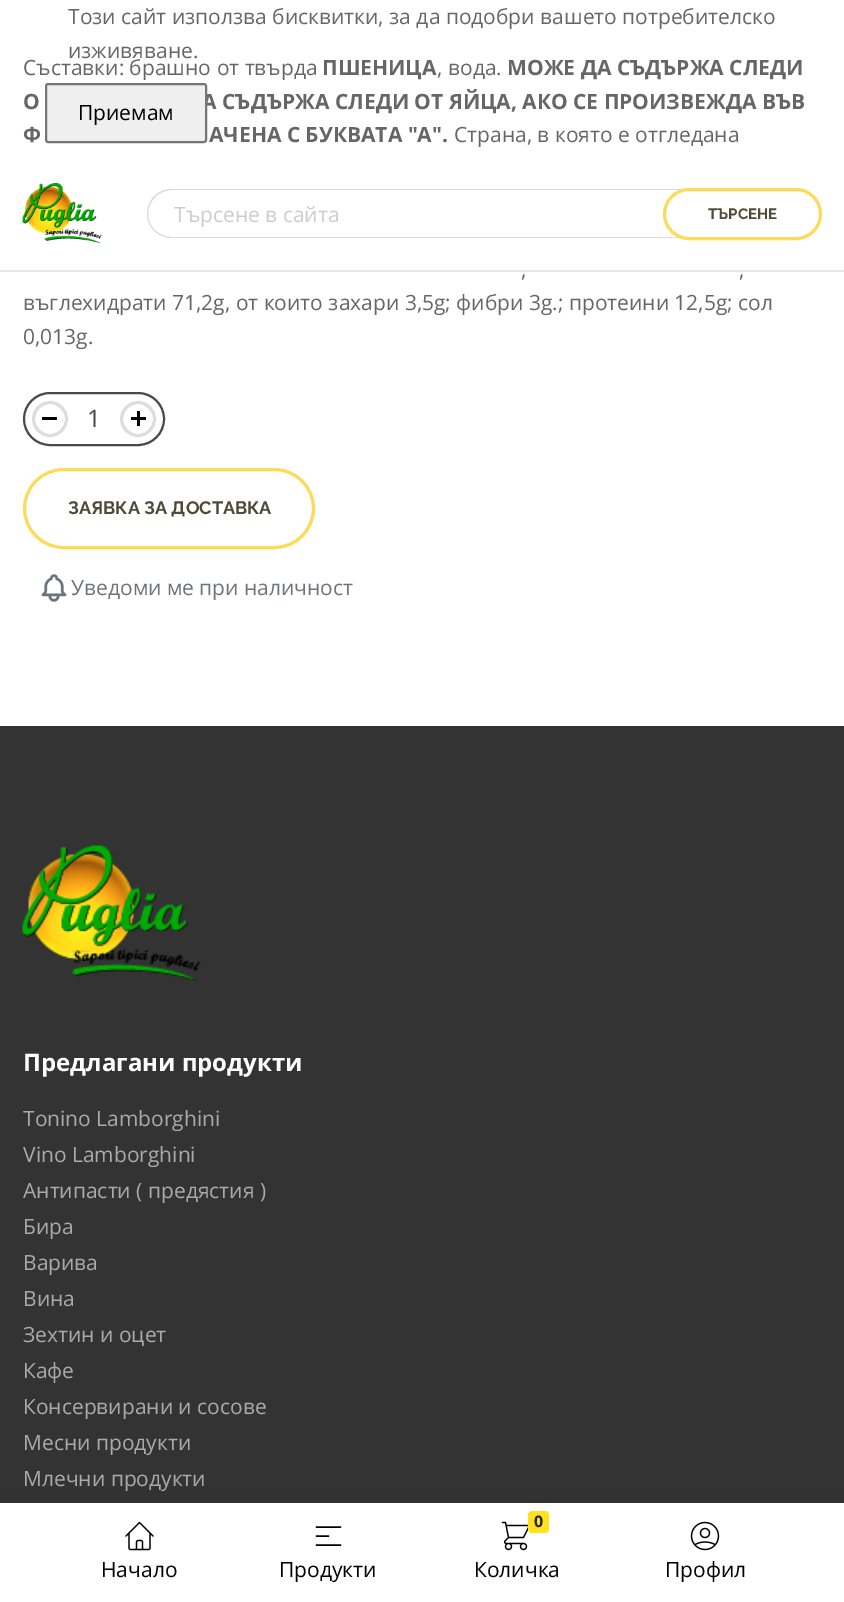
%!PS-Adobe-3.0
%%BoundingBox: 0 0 844 1602
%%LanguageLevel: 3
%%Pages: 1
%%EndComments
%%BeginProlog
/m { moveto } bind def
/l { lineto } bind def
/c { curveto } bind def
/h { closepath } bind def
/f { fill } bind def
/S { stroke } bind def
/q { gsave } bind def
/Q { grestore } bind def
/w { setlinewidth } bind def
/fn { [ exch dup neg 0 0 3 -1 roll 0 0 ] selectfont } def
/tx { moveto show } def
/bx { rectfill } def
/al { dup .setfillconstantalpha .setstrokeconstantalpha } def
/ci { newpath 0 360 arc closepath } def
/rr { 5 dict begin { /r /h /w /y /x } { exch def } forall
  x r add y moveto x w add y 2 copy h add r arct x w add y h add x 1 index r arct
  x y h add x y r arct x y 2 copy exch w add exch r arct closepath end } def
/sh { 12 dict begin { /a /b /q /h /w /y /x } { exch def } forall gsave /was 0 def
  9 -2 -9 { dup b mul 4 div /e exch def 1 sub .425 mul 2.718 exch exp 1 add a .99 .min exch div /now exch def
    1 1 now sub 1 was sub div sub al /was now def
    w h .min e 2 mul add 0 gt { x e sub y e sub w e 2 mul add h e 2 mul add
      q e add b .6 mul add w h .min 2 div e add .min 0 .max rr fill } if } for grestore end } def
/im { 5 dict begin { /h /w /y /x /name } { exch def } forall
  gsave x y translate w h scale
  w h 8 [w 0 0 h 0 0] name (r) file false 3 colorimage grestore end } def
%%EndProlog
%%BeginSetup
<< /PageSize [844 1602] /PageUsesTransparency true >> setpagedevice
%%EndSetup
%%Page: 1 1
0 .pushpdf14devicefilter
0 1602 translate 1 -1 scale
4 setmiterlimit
1 setgray
0 0 844 1602 bx
/OpenSans-Regular 21 fn
0.4 setgray
(Този сайт използва бисквитки, за да подобри вашето потребителско) 68 24 tx
(изживяване.) 68 58 tx
/OpenSans-Bold 21 fn
(А СЪДЪРЖА СЛЕДИ ОТ ЯЙЦА, АКО СЕ ПРОИЗВЕЖДА ВЪВ) 202 109 tx
0.937 setgray
46 84 160 58 2 rr q f Q
0.463 setgray
2 w
S
/OpenSans-Regular 21 fn
0 setgray
(Приемам) 78 120 tx
0.91 setgray
0 270 844 2 bx
(image0.raw) 22 183 80 60 im
0.855 setgray
172 189 m 683 189 l 697 189 708 200 708 214 c 708 227 697 238 683 238 c 172 238 l 158 238 147 227 147 214 c 147 200 158 189 172 189 c h 172 190 m 683 190 l 697 190 708 201 708 214 c 708 227 697 237 683 237 c 172 237 l 159 237 148 227 148 214 c 148 201 159 190 172 190 c h eofill
0.8 setgray
(Търсене в сайта) 174 222 tx
1 setgray
664.5 189.5 156 49 24.5 rr q f Q
0.988 0.859 0.353 setrgbcolor
3 w
S
/Raleway-Bold 15 fn
0.31 0.29 0.216 setrgbcolor
(ТЪРСЕНЕ) 708 219 tx
0.2 setgray
0 726 844 777 bx
0 setgray
-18 1523 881 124 0 15 0.45 sh
1 setgray
0 1503 844 99 bx
(image1.raw) 125 1521 29 30 im
/OpenSans-Regular 21 fn
0 setgray
(Начало) 101 1577 tx
1.5 w
1 setlinecap
1 setlinejoin
316.5 1527 m 340.5 1527 l 316.5 1536 m 328.5 1536 l 316.5 1545 m 340.5 1545 l S
(Продукти) 279 1577 tx
(image2.raw) 501 1521 28 30 im
1 0.886 0.106 setrgbcolor
528 1511 21 22 4 rr f
/OpenSans-Bold 16 fn
0.129 0.145 0.161 setrgbcolor
(0) 534 1527 tx
/OpenSans-Regular 21 fn
0 setgray
(Количка) 474 1577 tx
(image3.raw) 690 1521 30 30 im
(Профил) 665 1577 tx
0.4 setgray
(Съставки: брашно от твърда) 23 75 tx
/OpenSans-Bold 21 fn
(ПШЕНИЦА) 322 75 tx
/OpenSans-Regular 21 fn
(, вода.) 437 75 tx
/OpenSans-Bold 21 fn
(МОЖЕ ДА СЪДЪРЖА СЛЕДИ) 507 75 tx
(О) 23 109 tx
(Ф) 23 142 tx
(АЧЕНА С БУКВАТА "А".) 209 142 tx
/OpenSans-Regular 21 fn
(Страна, в която е отгледана) 454 142 tx
(,) 521 277 tx
(,) 739 277 tx
(въглехидрати 71,2g, от които захари 3,5g; фибри 3g.; протеини 12,5g; сол) 23 310 tx
(0,013g.) 23 344 tx
0.286 setgray
2 w
0 setlinecap
0 setlinejoin
24 393 140 52 26 rr S
0.867 setgray
3 w
50 419 16.5 ci S
0 setgray
42 417 15 3 bx
/OpenSans-Regular 24 fn
0.286 setgray
(1) 87 427 tx
0.867 setgray
138 419 16.5 ci S
0 setgray
131 417 15 3 bx
137 411 3 15 bx
0.988 0.859 0.353 setrgbcolor
24.5 469.5 289 78 39 rr S
/Raleway-Bold 18 fn
0.31 0.29 0.216 setrgbcolor
(ЗАЯВКА ЗА ДОСТАВКА) 68 514 tx
(image4.raw) 41 574 26 28 im
/OpenSans-Regular 21 fn
0.424 0.459 0.49 setrgbcolor
(Уведоми ме при наличност) 71 595 tx
(image5.raw) 22 845 179 136 im
/OpenSans-Bold 24 fn
1 setgray
(Предлагани продукти) 23 1071 tx
/OpenSans-Regular 21 fn
0.667 setgray
(Tonino Lamborghini) 23 1126 tx
(Vino Lamborghini) 23 1162 tx
(Антипасти \( предястия \)) 23 1198 tx
(Бира) 23 1234 tx
(Варива) 23 1270 tx
(Вина) 23 1306 tx
(Зехтин и оцет) 23 1342 tx
(Кафе) 23 1378 tx
(Консервирани и сосове) 23 1414 tx
(Месни продукти) 23 1450 tx
(Млечни продукти) 23 1486 tx
.poppdf14devicefilter showpage
%%EOF
